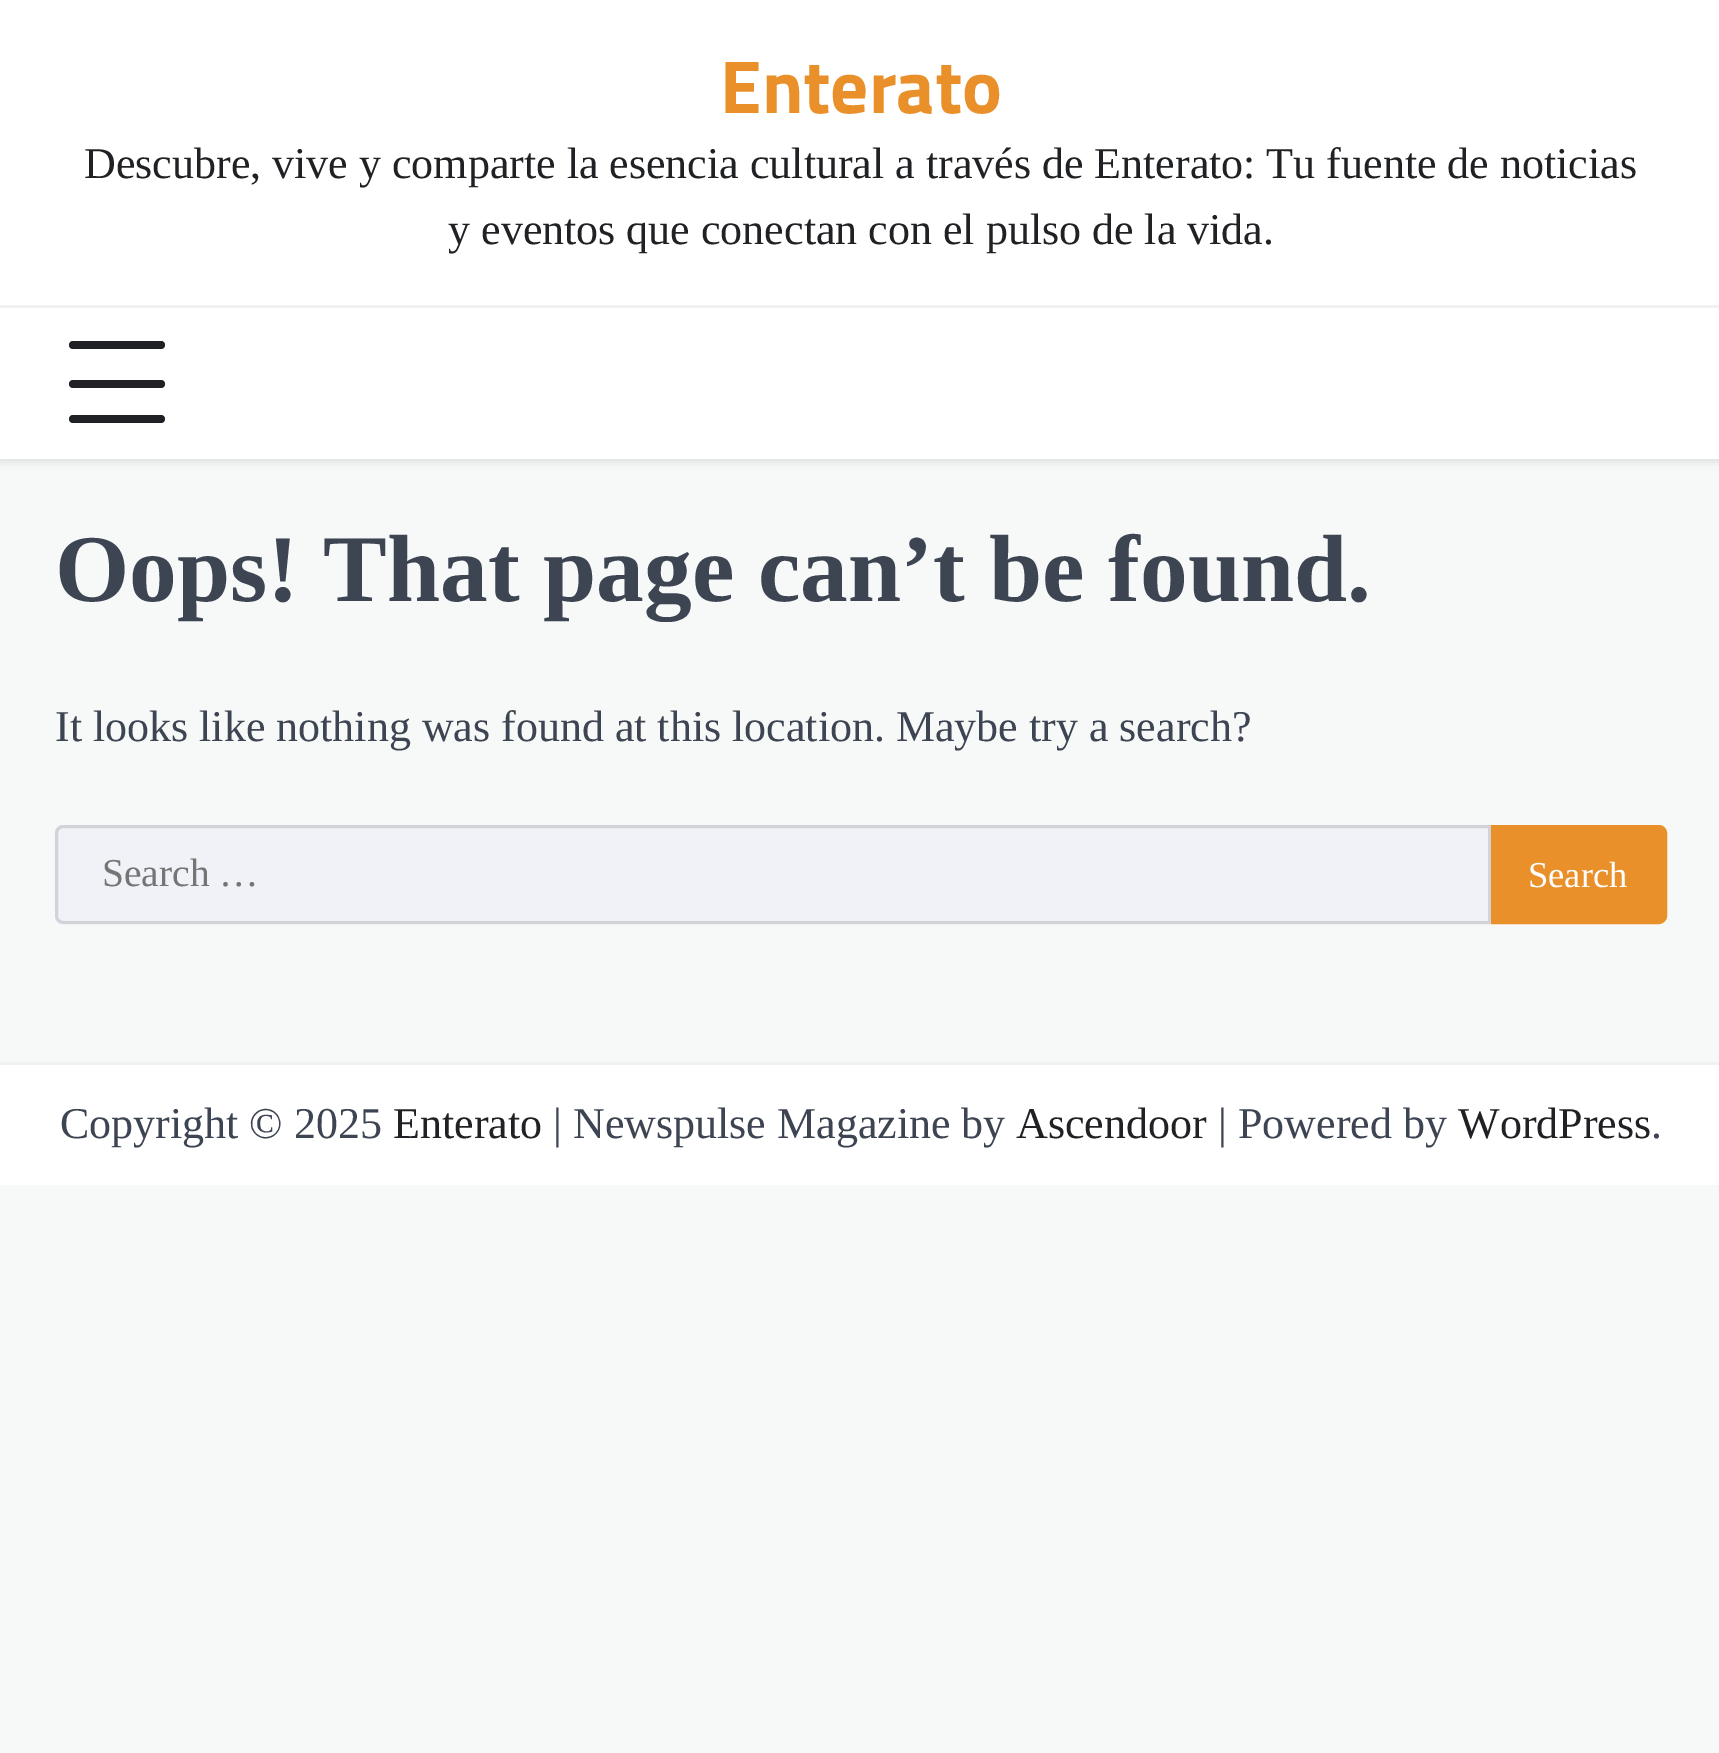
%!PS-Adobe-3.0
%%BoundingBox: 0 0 1719 1753
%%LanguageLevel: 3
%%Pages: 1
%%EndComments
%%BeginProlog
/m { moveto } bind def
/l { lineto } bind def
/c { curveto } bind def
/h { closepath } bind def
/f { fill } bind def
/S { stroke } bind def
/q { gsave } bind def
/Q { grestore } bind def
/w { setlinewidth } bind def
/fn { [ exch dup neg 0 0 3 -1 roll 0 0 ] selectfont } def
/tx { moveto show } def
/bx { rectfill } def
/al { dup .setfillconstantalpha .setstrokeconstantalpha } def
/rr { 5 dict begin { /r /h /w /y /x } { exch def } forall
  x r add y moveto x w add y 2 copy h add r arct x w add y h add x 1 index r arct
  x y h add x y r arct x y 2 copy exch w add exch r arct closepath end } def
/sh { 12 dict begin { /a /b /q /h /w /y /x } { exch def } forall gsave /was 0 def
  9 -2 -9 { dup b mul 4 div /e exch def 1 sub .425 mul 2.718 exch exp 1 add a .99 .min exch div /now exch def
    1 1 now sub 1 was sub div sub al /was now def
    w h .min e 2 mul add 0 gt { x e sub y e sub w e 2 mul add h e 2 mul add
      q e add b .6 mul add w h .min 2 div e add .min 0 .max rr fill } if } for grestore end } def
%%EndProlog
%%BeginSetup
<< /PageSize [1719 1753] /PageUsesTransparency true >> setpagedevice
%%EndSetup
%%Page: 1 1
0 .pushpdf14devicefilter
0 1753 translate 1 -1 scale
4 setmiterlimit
0.969 0.976 0.973 setrgbcolor
0 0 1719 1753 bx
0 setgray
0 3 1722 459 0 4 0.1 sh
1 setgray
0 0 1719 305 bx
/TitilliumWeb-Bold 75 fn
0.918 0.565 0.165 setrgbcolor
(Enterato) 720 113 tx
/LiberationSerif-Regular 44 fn
0.125 0.129 0.141 setrgbcolor
(Descubre, vive y comparte la esencia cultural a través de Enterato: Tu fuente de noticias) 84 178 tx
(y eventos que conectan con el pulso de la vida.) 448 244 tx
1 setgray
0 308 1719 151 bx
0.945 setgray
0 305 1719 3 bx
0.125 0.129 0.141 setrgbcolor
69 341 96 8 4 rr f
69 380 96 8 4 rr f
69 415 96 8 4 rr f
/LiberationSerif-Bold 95.5 fn
0.239 0.267 0.322 setrgbcolor
(Oops! That page can’t be found.) 55 601 tx
/LiberationSerif-Regular 44 fn
(It looks like nothing was found at this location. Maybe try a search?) 55 741 tx
0.941 0.949 0.969 setrgbcolor
63 825 m 1491 825 l 1491 924 l 63 924 l 58.5 924 55 920.5 55 916 c 55 833 l 55 828.5 58.5 825 63 825 c h f
0.15 al
0.125 0.129 0.141 setrgbcolor
3 w
63 826.5 m 1489.5 826.5 l 1489.5 922.5 l 63 922.5 l 59.5 922.5 56.5 919.5 56.5 916 c 56.5 833 l 56.5 829.5 59.5 826.5 63 826.5 c h S
/LiberationSerif-Regular 39.5 fn
1 al
0.459 setgray
(Search …) 102 886 tx
0.918 0.565 0.165 setrgbcolor
1492.5 826.5 m 1659 826.5 l 1662.5 826.5 1665.5 829.5 1665.5 833 c 1665.5 916 l 1665.5 919.5 1662.5 922.5 1659 922.5 c 1492.5 922.5 l h q f Q
S
/LiberationSerif-Regular 36.5 fn
1 setgray
(Search) 1528 887 tx
0 1065 1719 120 bx
0.945 setgray
0 1062 1719 3 bx
/LiberationSerif-Regular 44 fn
0.239 0.267 0.322 setrgbcolor
(Copyright © 2025) 60 1138 tx
0.125 0.129 0.141 setrgbcolor
(Enterato) 393 1138 tx
0.239 0.267 0.322 setrgbcolor
(| Newspulse Magazine by) 553 1138 tx
0.125 0.129 0.141 setrgbcolor
(Ascendoor) 1016 1138 tx
0.239 0.267 0.322 setrgbcolor
(| Powered by) 1218 1138 tx
0.125 0.129 0.141 setrgbcolor
(WordPress) 1458 1138 tx
0.239 0.267 0.322 setrgbcolor
(.) 1651 1138 tx
.poppdf14devicefilter showpage
%%EOF
